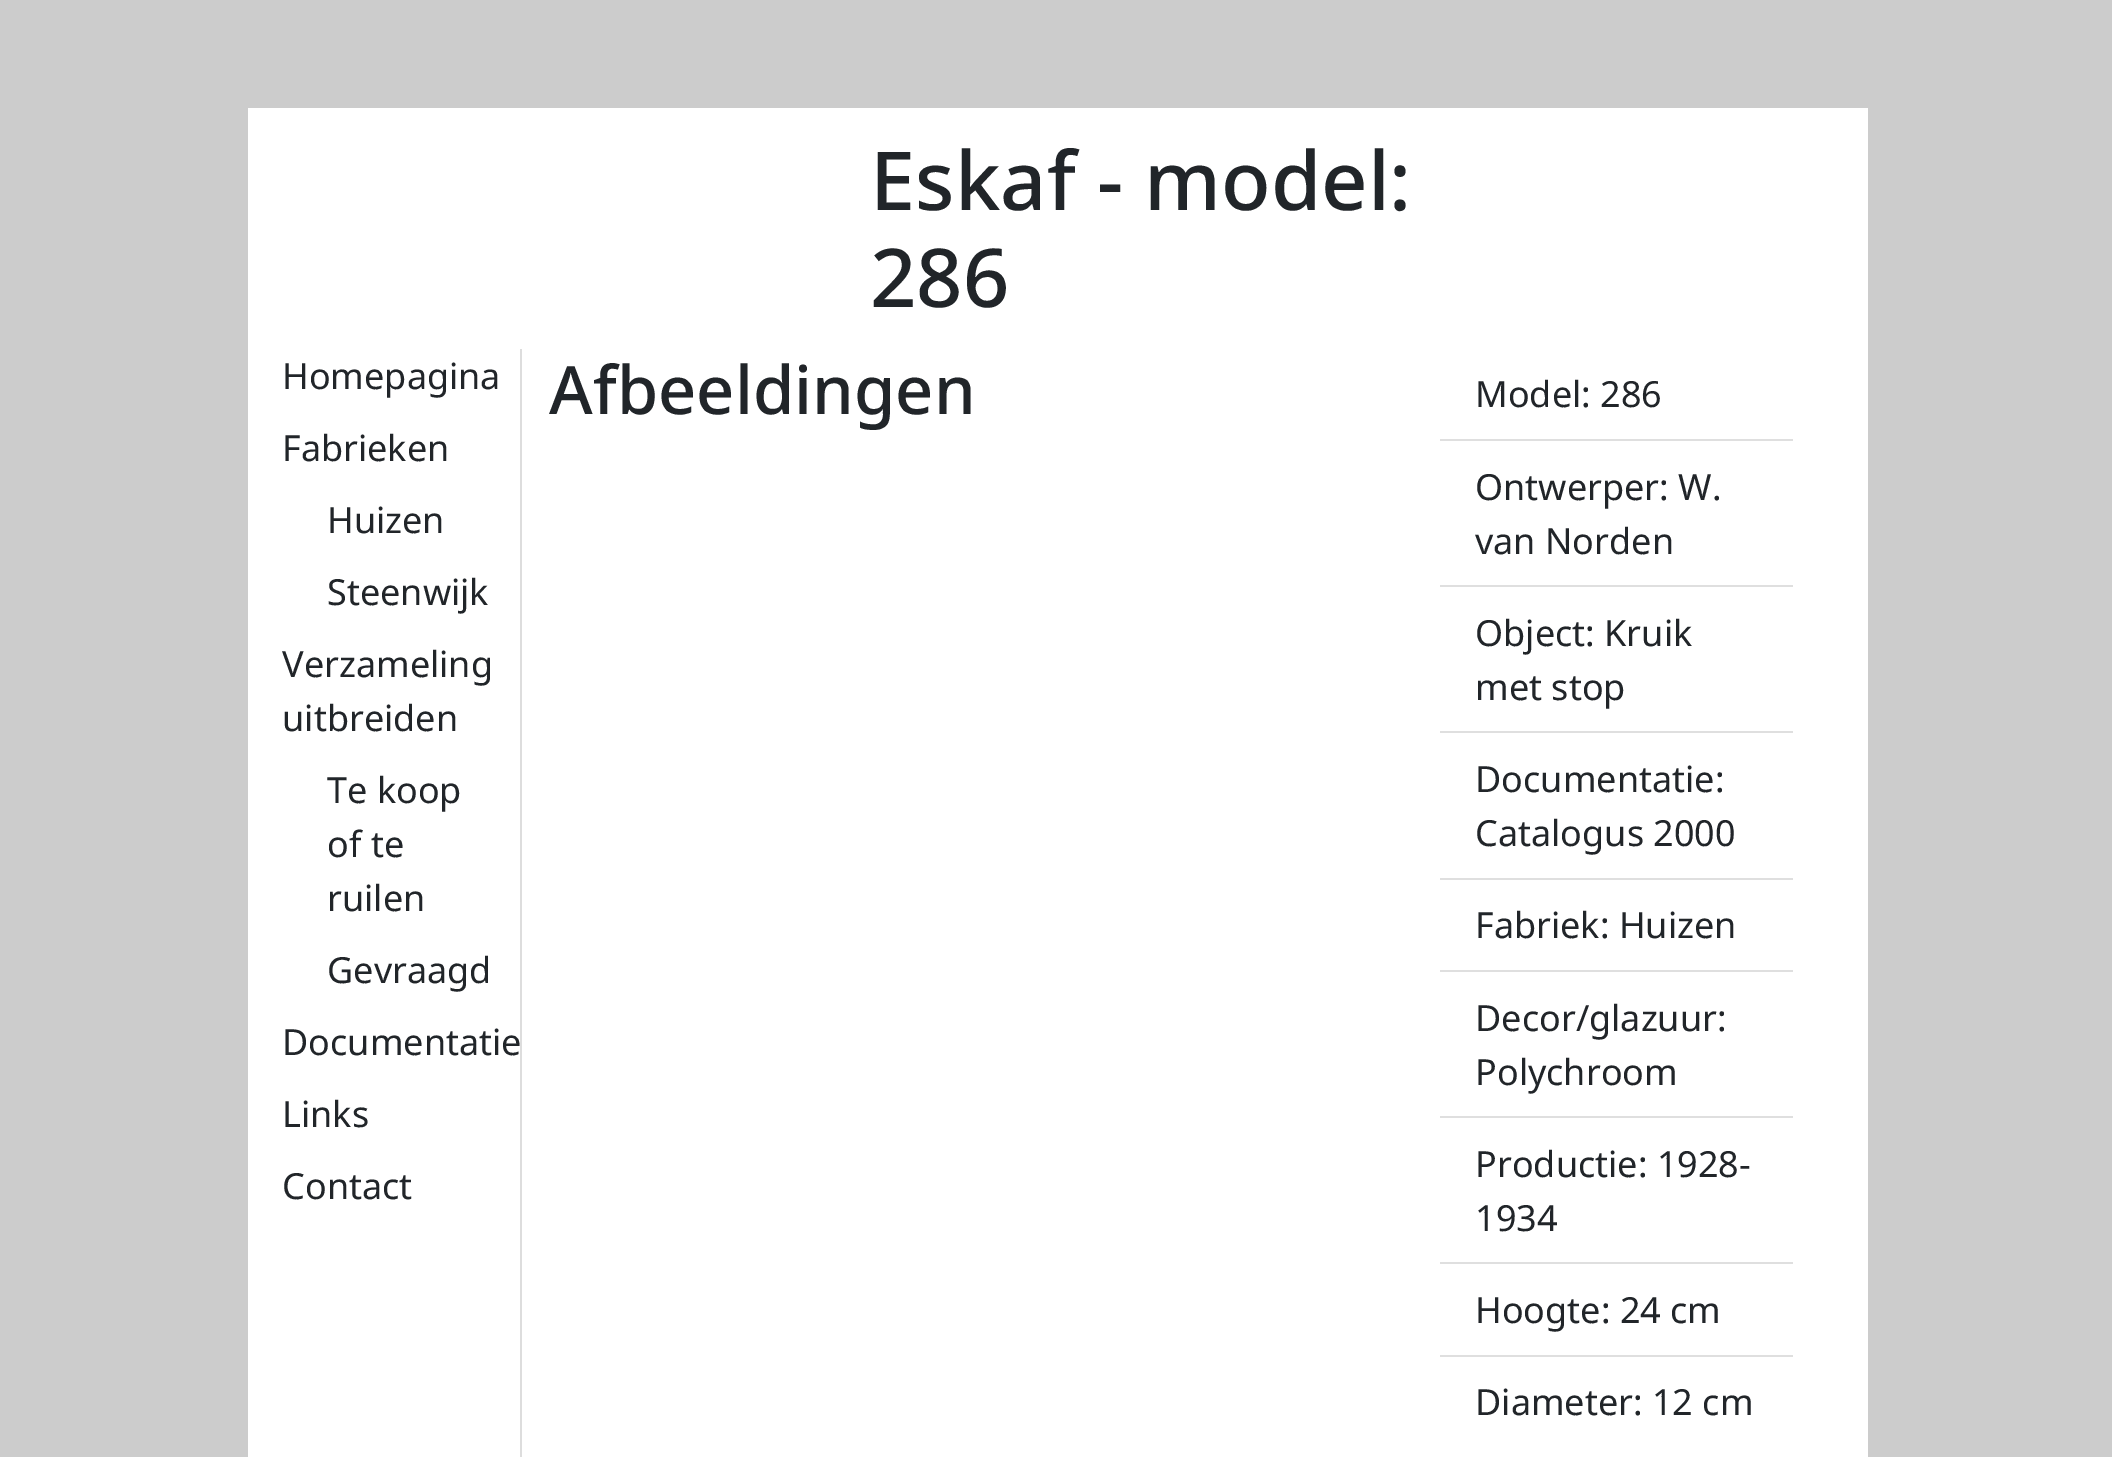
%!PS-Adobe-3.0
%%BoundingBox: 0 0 2112 1457
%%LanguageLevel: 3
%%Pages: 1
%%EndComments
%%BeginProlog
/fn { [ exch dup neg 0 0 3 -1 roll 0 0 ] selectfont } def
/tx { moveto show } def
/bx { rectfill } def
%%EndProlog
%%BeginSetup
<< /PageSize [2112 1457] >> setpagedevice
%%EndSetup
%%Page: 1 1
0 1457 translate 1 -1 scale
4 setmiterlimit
0.8 setgray
0 0 2112 1457 bx
1 setgray
248 108 1620 1349 bx
/NotoSans-Medium 81.25 fn
0.129 0.145 0.161 setrgbcolor
(Eskaf - model:) 870 210 tx
(286) 870 307 tx
0.867 setgray
520 349 2 1108 bx
/NotoSans-Regular 36 fn
0.129 0.145 0.161 setrgbcolor
(Homepagina) 282 389 tx
(Fabrieken) 282 461 tx
(Huizen) 327 533 tx
(Steenwijk) 327 605 tx
(Verzameling) 282 677 tx
(uitbreiden) 282 731 tx
(Te koop) 327 803 tx
(of te) 327 857 tx
(ruilen) 327 911 tx
(Gevraagd) 327 983 tx
(Documentatie) 282 1055 tx
(Links) 282 1127 tx
(Contact) 282 1199 tx
/NotoSans-Medium 66.75 fn
(Afbeeldingen) 549 414 tx
0.875 setgray
1440 439 353 2 bx
/NotoSans-Regular 36 fn
0.129 0.145 0.161 setrgbcolor
(Model: 286) 1475 407 tx
0.875 setgray
1440 585 353 2 bx
0.129 0.145 0.161 setrgbcolor
(Ontwerper: W.) 1475 500 tx
(van Norden) 1475 554 tx
0.875 setgray
1440 731 353 2 bx
0.129 0.145 0.161 setrgbcolor
(Object: Kruik) 1475 646 tx
(met stop) 1475 700 tx
0.875 setgray
1440 878 353 2 bx
0.129 0.145 0.161 setrgbcolor
(Documentatie:) 1475 792 tx
(Catalogus 2000) 1475 846 tx
0.875 setgray
1440 970 353 2 bx
0.129 0.145 0.161 setrgbcolor
(Fabriek: Huizen) 1475 938 tx
0.875 setgray
1440 1116 353 2 bx
0.129 0.145 0.161 setrgbcolor
(Decor/glazuur:) 1475 1031 tx
(Polychroom) 1475 1085 tx
0.875 setgray
1440 1262 353 2 bx
0.129 0.145 0.161 setrgbcolor
(Productie: 1928-) 1475 1177 tx
(1934) 1475 1231 tx
0.875 setgray
1440 1355 353 2 bx
0.129 0.145 0.161 setrgbcolor
(Hoogte: 24 cm) 1475 1323 tx
(Diameter: 12 cm) 1475 1415 tx
showpage
%%EOF
